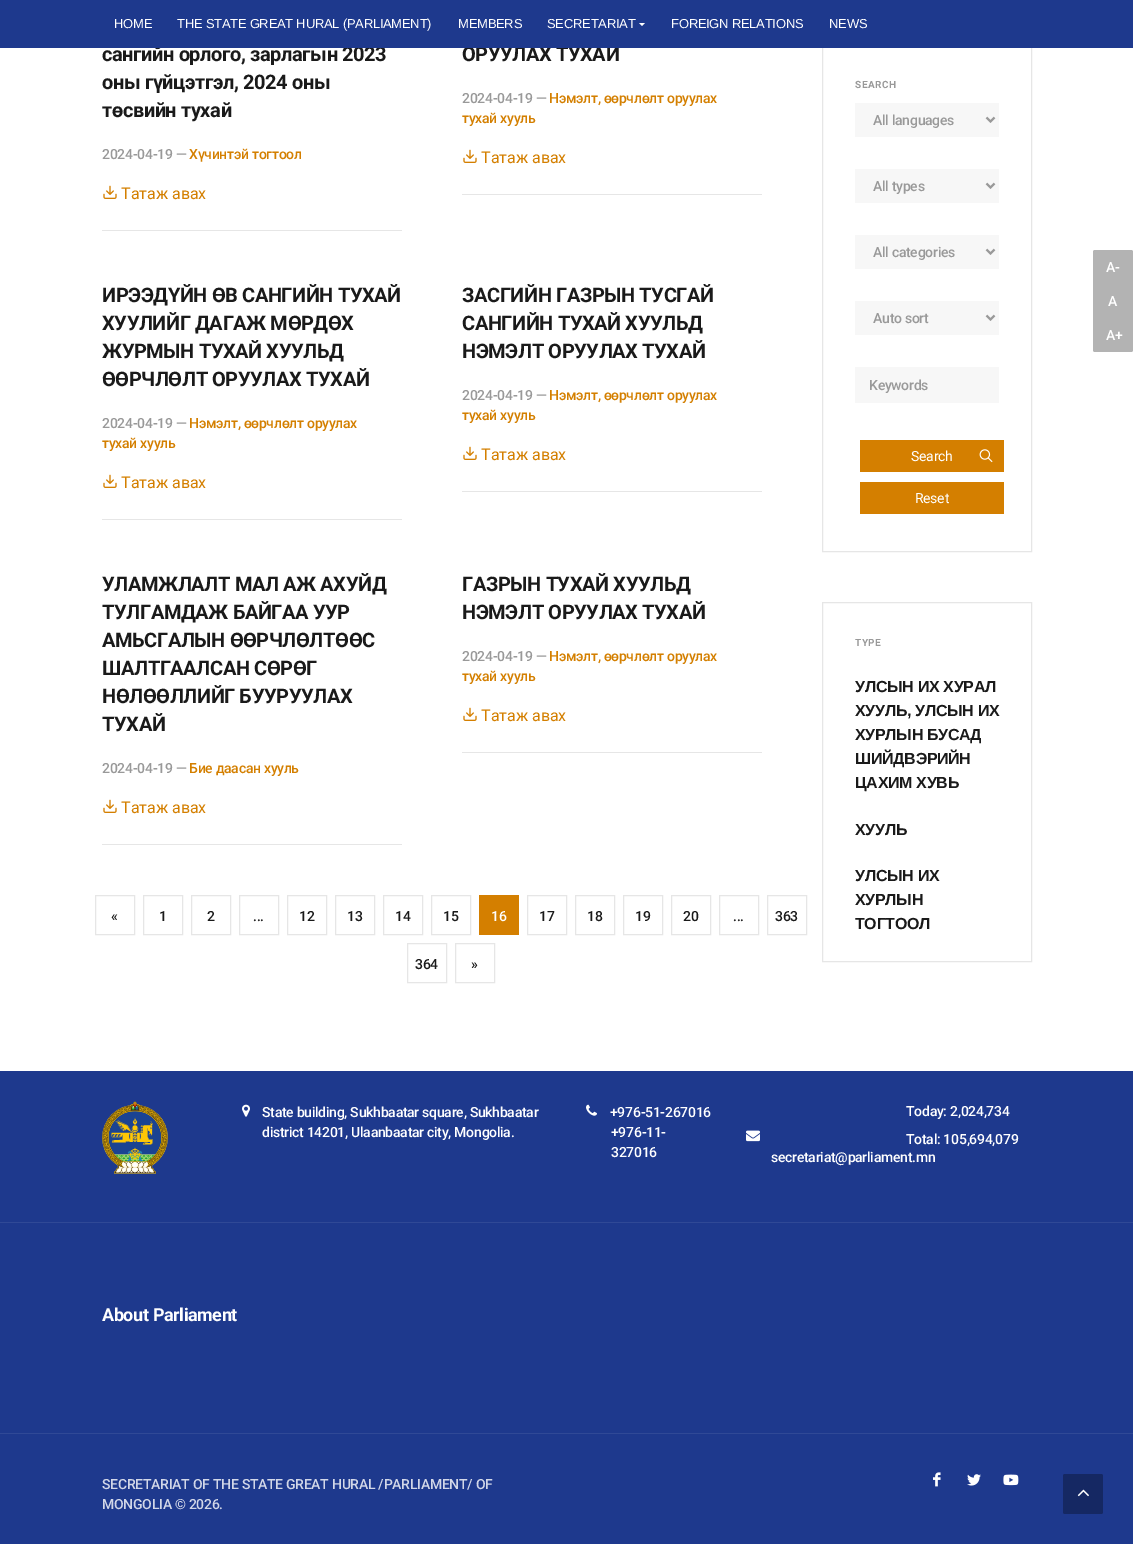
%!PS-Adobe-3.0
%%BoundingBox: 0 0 1133 1544
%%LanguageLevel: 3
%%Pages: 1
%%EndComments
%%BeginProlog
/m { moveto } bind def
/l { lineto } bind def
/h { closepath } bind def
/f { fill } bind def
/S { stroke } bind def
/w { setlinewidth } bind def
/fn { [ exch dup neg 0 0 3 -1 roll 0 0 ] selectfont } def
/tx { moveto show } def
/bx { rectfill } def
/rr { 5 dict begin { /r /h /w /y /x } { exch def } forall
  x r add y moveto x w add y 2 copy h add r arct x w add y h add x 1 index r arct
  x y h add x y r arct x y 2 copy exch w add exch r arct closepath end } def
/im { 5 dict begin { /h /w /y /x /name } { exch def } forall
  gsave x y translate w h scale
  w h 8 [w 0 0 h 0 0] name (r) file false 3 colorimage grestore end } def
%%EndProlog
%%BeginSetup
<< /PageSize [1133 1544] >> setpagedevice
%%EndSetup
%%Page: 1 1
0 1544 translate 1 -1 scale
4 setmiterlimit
1 setgray
0 0 1133 1544 bx
/Roboto-Bold 20 fn
0.102 setgray
102 61 m -0.4 0 (сангийн орлого, зарлагын 2023) ashow
462 61 m -0.4 0 (ОРУУЛАХ ТУХАЙ) ashow
0.902 setgray
822.5 44.5 209 507 rectstroke
0.118 0.224 0.553 setrgbcolor
0 0 1133 48 bx
/LiberationSans-Regular 13 fn
1 setgray
114 28 m -0.25 0 (HOME) ashow
177 28 m -0.25 0 (THE STATE GREAT HURAL \(PARLIAMENT\)) ashow
458 28 m -0.25 0 (MEMBERS) ashow
547 28 m -0.25 0 (SECRETARIAT) ashow
639 23 m 645 23 l 642 26 l h f
671 28 m -0.25 0 (FOREIGN RELATIONS) ashow
829 28 m -0.25 0 (NEWS) ashow
/Roboto-Bold 20 fn
0.102 setgray
102 89 m -0.4 0 (оны гүйцэтгэл, 2024 оны) ashow
102 117 m -0.4 0 (төсвийн тухай) ashow
/Roboto-Medium 14 fn
0.6 setgray
102 159 m -0.28 0 (2024-04-19 —) ashow
0.831 0.498 0 setrgbcolor
189 159 m -0.28 0 (Хүчинтэй тогтоол) ashow
0.902 setgray
102 230 300 1 bx
(image0.raw) 103 185 14 14 im
/Roboto-Regular 16 fn
0.831 0.498 0 setrgbcolor
(Татаж авах) 121 199 tx
/Roboto-Medium 14 fn
0.6 setgray
462 103 m -0.28 0 (2024-04-19 —) ashow
0.831 0.498 0 setrgbcolor
549 103 m -0.28 0 (Нэмэлт, өөрчлөлт оруулах) ashow
462 123 m -0.28 0 (тухай хууль) ashow
0.902 setgray
462 194 300 1 bx
(image0.raw) 463 149 14 14 im
/Roboto-Regular 16 fn
0.831 0.498 0 setrgbcolor
(Татаж авах) 481 163 tx
/Roboto-Bold 20 fn
0.102 setgray
102 302 m -0.4 0 (ИРЭЭДҮЙН ӨВ САНГИЙН ТУХАЙ) ashow
102 330 m -0.4 0 (ХУУЛИЙГ ДАГАЖ МӨРДӨХ) ashow
102 358 m -0.4 0 (ЖУРМЫН ТУХАЙ ХУУЛЬД) ashow
102 386 m -0.4 0 (ӨӨРЧЛӨЛТ ОРУУЛАХ ТУХАЙ) ashow
/Roboto-Medium 14 fn
0.6 setgray
102 428 m -0.28 0 (2024-04-19 —) ashow
0.831 0.498 0 setrgbcolor
189 428 m -0.28 0 (Нэмэлт, өөрчлөлт оруулах) ashow
102 448 m -0.28 0 (тухай хууль) ashow
0.902 setgray
102 519 300 1 bx
(image0.raw) 103 474 14 14 im
/Roboto-Regular 16 fn
0.831 0.498 0 setrgbcolor
(Татаж авах) 121 488 tx
/Roboto-Bold 20 fn
0.102 setgray
462 302 m -0.4 0 (ЗАСГИЙН ГАЗРЫН ТУСГАЙ) ashow
462 330 m -0.4 0 (САНГИЙН ТУХАЙ ХУУЛЬД) ashow
462 358 m -0.4 0 (НЭМЭЛТ ОРУУЛАХ ТУХАЙ) ashow
/Roboto-Medium 14 fn
0.6 setgray
462 400 m -0.28 0 (2024-04-19 —) ashow
0.831 0.498 0 setrgbcolor
549 400 m -0.28 0 (Нэмэлт, өөрчлөлт оруулах) ashow
462 420 m -0.28 0 (тухай хууль) ashow
0.902 setgray
462 491 300 1 bx
(image0.raw) 463 446 14 14 im
/Roboto-Regular 16 fn
0.831 0.498 0 setrgbcolor
(Татаж авах) 481 460 tx
/Roboto-Bold 20 fn
0.102 setgray
102 591 m -0.4 0 (УЛАМЖЛАЛТ МАЛ АЖ АХУЙД) ashow
102 619 m -0.4 0 (ТУЛГАМДАЖ БАЙГАА УУР) ashow
102 647 m -0.4 0 (АМЬСГАЛЫН ӨӨРЧЛӨЛТӨӨС) ashow
102 675 m -0.4 0 (ШАЛТГААЛСАН СӨРӨГ) ashow
102 703 m -0.4 0 (НӨЛӨӨЛЛИЙГ БУУРУУЛАХ) ashow
102 731 m -0.4 0 (ТУХАЙ) ashow
/Roboto-Medium 14 fn
0.6 setgray
102 773 m -0.28 0 (2024-04-19 —) ashow
0.831 0.498 0 setrgbcolor
189 773 m -0.28 0 (Бие даасан хууль) ashow
0.902 setgray
102 844 300 1 bx
(image0.raw) 103 799 14 14 im
/Roboto-Regular 16 fn
0.831 0.498 0 setrgbcolor
(Татаж авах) 121 813 tx
/Roboto-Bold 20 fn
0.102 setgray
462 591 m -0.4 0 (ГАЗРЫН ТУХАЙ ХУУЛЬД) ashow
462 619 m -0.4 0 (НЭМЭЛТ ОРУУЛАХ ТУХАЙ) ashow
/Roboto-Medium 14 fn
0.6 setgray
462 661 m -0.28 0 (2024-04-19 —) ashow
0.831 0.498 0 setrgbcolor
549 661 m -0.28 0 (Нэмэлт, өөрчлөлт оруулах) ashow
462 681 m -0.28 0 (тухай хууль) ashow
0.902 setgray
462 752 300 1 bx
(image0.raw) 463 707 14 14 im
/Roboto-Regular 16 fn
0.831 0.498 0 setrgbcolor
(Татаж авах) 481 721 tx
0.902 setgray
95.5 895.5 39 39 rectstroke
/Roboto-Medium 14 fn
0.102 setgray
111 921 m -0.28 0 («) ashow
0.902 setgray
143.5 895.5 39 39 rectstroke
0.102 setgray
159 921 m -0.28 0 (1) ashow
0.902 setgray
191.5 895.5 39 39 rectstroke
0.102 setgray
207 921 m -0.28 0 (2) ashow
0.902 setgray
239.5 895.5 39 39 rectstroke
0.102 setgray
253 921 m -0.28 0 (...) ashow
0.902 setgray
287.5 895.5 39 39 rectstroke
0.102 setgray
299 921 m -0.28 0 (12) ashow
0.902 setgray
335.5 895.5 39 39 rectstroke
0.102 setgray
347 921 m -0.28 0 (13) ashow
0.902 setgray
383.5 895.5 39 39 rectstroke
0.102 setgray
395 921 m -0.28 0 (14) ashow
0.902 setgray
431.5 895.5 39 39 rectstroke
0.102 setgray
443 921 m -0.28 0 (15) ashow
0.831 0.498 0 setrgbcolor
479 895 40 40 bx
1 setgray
491 921 m -0.28 0 (16) ashow
0.902 setgray
527.5 895.5 39 39 rectstroke
0.102 setgray
539 921 m -0.28 0 (17) ashow
0.902 setgray
575.5 895.5 39 39 rectstroke
0.102 setgray
587 921 m -0.28 0 (18) ashow
0.902 setgray
623.5 895.5 39 39 rectstroke
0.102 setgray
635 921 m -0.28 0 (19) ashow
0.902 setgray
671.5 895.5 39 39 rectstroke
0.102 setgray
683 921 m -0.28 0 (20) ashow
0.902 setgray
719.5 895.5 39 39 rectstroke
0.102 setgray
733 921 m -0.28 0 (...) ashow
0.902 setgray
767.5 895.5 39 39 rectstroke
0.102 setgray
775 921 m -0.28 0 (363) ashow
0.902 setgray
407.5 943.5 39 39 rectstroke
0.102 setgray
415 969 m -0.28 0 (364) ashow
0.902 setgray
455.5 943.5 39 39 rectstroke
0.102 setgray
471 969 m -0.28 0 (») ashow
/Roboto-Bold 10 fn
0.6 setgray
855 88 m 0.5 0 (SEARCH) ashow
0.969 setgray
855 103 144 34 bx
0.6 setgray
2 w
986.5 117.5 m 990.5 121.5 l 994.5 117.5 l S
/Roboto-Medium 14 fn
873 125 m -0.28 0 (All languages) ashow
0.969 setgray
855 169 144 34 bx
0.6 setgray
986.5 183.5 m 990.5 187.5 l 994.5 183.5 l S
873 191 m -0.28 0 (All types) ashow
0.969 setgray
855 235 144 34 bx
0.6 setgray
986.5 249.5 m 990.5 253.5 l 994.5 249.5 l S
873 257 m -0.28 0 (All categories) ashow
0.969 setgray
855 301 144 34 bx
0.6 setgray
986.5 315.5 m 990.5 319.5 l 994.5 315.5 l S
873 323 m -0.28 0 (Auto sort) ashow
0.969 setgray
855 367 144 36 bx
0.6 setgray
869 390 m -0.28 0 (Keywords) ashow
0.831 0.498 0 setrgbcolor
860 440 144 32 bx
/Roboto-Regular 14 fn
1 setgray
911 461 m -0.28 0 (Search) ashow
(image1.raw) 979 449 14 14 im
0.831 0.498 0 setrgbcolor
860 482 144 32 bx
1 setgray
915 503 m -0.28 0 (Reset) ashow
0.902 setgray
1 w
822.5 602.5 209 359 rectstroke
/Roboto-Bold 10 fn
0.6 setgray
855 646 m 0.5 0 (TYPE) ashow
/LiberationSans-Bold 16 fn
0.102 setgray
855 692 m -0.3 0 (УЛСЫН ИХ ХУРАЛ) ashow
855 716 m -0.3 0 (ХУУЛЬ, УЛСЫН ИХ) ashow
855 740 m -0.3 0 (ХУРЛЫН БУСАД) ashow
855 764 m -0.3 0 (ШИЙДВЭРИЙН) ashow
855 788 m -0.3 0 (ЦАХИМ ХУВЬ) ashow
855 835 m -0.3 0 (ХУУЛЬ) ashow
855 881 m -0.3 0 (УЛСЫН ИХ) ashow
855 905 m -0.3 0 (ХУРЛЫН) ashow
855 929 m -0.3 0 (ТОГТООЛ) ashow
0.118 0.224 0.553 setrgbcolor
0 1071 1133 473 bx
0.188 0.286 0.588 setrgbcolor
0 1222 1133 1 bx
(image2.raw) 102 1101 66 73 im
(image3.raw) 242 1104 8 13 im
/Roboto-Medium 14 fn
1 setgray
262 1117 m -0.28 0 (State building, Sukhbaatar square, Sukhbaatar) ashow
262 1137 m -0.28 0 (district 14201, Ulaanbaatar city, Mongolia.) ashow
(image4.raw) 586 1104 11 12 im
610 1117 m -0.28 0 (+976-51-267016) ashow
611 1137 m -0.28 0 (+976-11-) ashow
611 1157 m -0.28 0 (327016) ashow
(image5.raw) 746 1130 14 12 im
771 1162 m -0.28 0 (secretariat@parliament.mn) ashow
906 1116 m -0.28 0 (Today: 2,024,734) ashow
906 1144 m -0.28 0 (Total: 105,694,079) ashow
/Roboto-Bold 18 fn
102 1321 m -0.4 0 (About Parliament) ashow
0.188 0.286 0.588 setrgbcolor
0 1433 1133 1 bx
/Roboto-Medium 14 fn
0.824 0.843 0.91 setrgbcolor
102 1489 m -0.28 0 (SECRETARIAT OF THE STATE GREAT HURAL /PARLIAMENT/ OF) ashow
102 1509 m -0.28 0 (MONGOLIA © 2026.) ashow
(image6.raw) 933 1472 8 15 im
(image7.raw) 967 1474 14 12 im
(image8.raw) 1003 1474 16 12 im
0.702 setgray
1093 250 40 102 2 rr f
1 setgray
1106 272 m -0.28 0 (A-) ashow
1108 306 m -0.28 0 (A) ashow
1106 340 m -0.28 0 (A+) ashow
0.082 0.157 0.388 setrgbcolor
1063 1474 40 40 2 rr f
(image9.raw) 1077 1489 12 8 im
showpage
%%EOF
